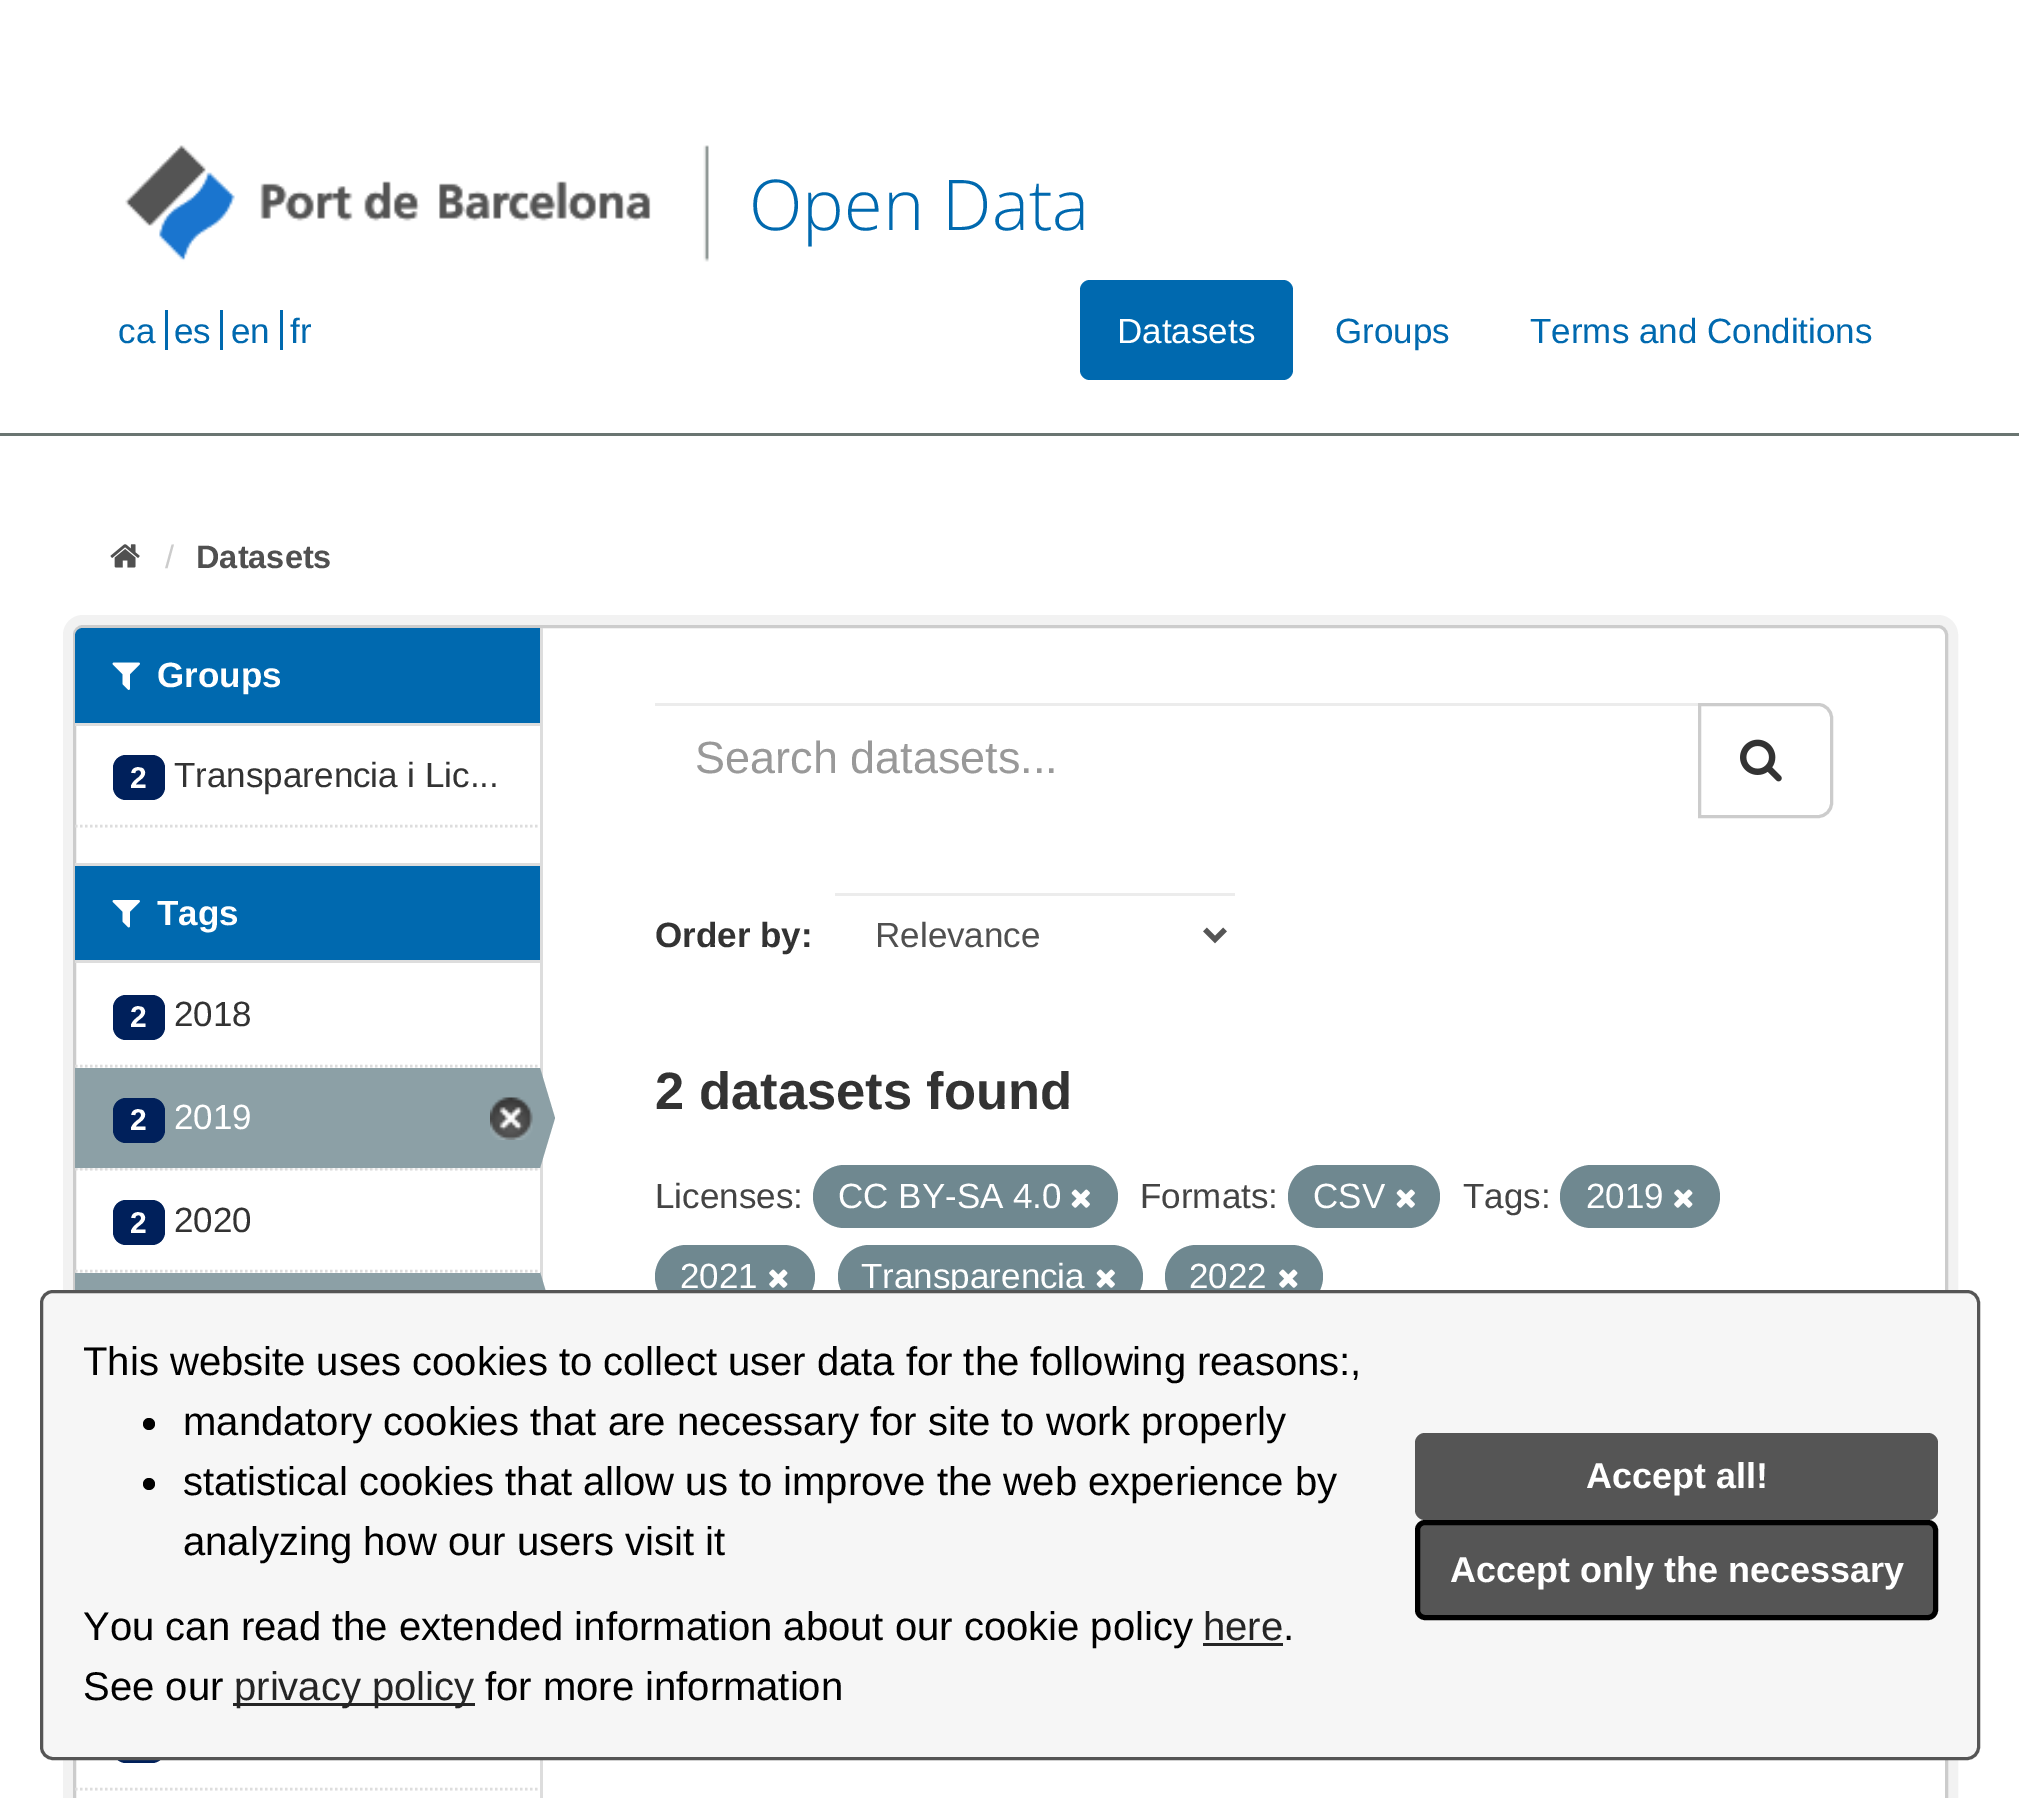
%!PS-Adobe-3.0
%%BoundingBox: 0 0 2019 1798
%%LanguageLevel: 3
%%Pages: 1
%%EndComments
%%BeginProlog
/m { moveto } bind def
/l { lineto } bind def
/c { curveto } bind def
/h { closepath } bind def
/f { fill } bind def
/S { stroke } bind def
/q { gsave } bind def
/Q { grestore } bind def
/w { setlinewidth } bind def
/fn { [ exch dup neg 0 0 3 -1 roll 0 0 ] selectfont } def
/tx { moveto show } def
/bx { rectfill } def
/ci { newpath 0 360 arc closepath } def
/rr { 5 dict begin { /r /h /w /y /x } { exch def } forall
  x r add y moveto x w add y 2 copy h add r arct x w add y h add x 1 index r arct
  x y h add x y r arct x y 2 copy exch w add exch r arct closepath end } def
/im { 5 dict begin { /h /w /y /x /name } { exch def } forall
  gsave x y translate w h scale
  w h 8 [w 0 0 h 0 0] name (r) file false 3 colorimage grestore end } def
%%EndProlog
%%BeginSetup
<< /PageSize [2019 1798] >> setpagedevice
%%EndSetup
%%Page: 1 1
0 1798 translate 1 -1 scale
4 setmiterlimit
1 setgray
0 0 2019 1798 bx
(image0.raw) 125 145 584 117 im
/OpenSans-Light 70 fn
0 0.412 0.686 setrgbcolor
(Open Data) 749 230 tx
/LiberationSans-Regular 35 fn
(ca) 118 343 tx
(es) 174 343 tx
165 310 3 40 bx
(en) 231 343 tx
220 310 3 40 bx
(fr) 290 343 tx
280 310 3 40 bx
1080 280 213 100 10 rr f
1 setgray
(Datasets) 1117 343 tx
0 0.412 0.686 setrgbcolor
(Groups) 1335 343 tx
(Terms and Conditions) 1530 343 tx
0.416 0.459 0.443 setrgbcolor
0 433 2019 3 bx
(image1.raw) 110 544 30 24 im
/LiberationSans-Regular 32.5 fn
0.8 setgray
(/) 165 568 tx
/LiberationSans-Bold 32.5 fn
0.314 setgray
(Datasets) 196 568 tx
0.949 setgray
10 w
68 620 1885 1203 15 rr S
1 setgray
74.5 626.5 1872 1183 8.5 rr q f Q
0.8 setgray
3 w
S
0 0.412 0.686 setrgbcolor
83 628 m 540 628 l 540 725 l 75 725 l 75 636 l 75 631.5 78.5 628 83 628 c h f
0.867 setgray
75 723 465 3 bx
(image2.raw) 112 662 28 28 im
/LiberationSans-Bold 35 fn
1 setgray
(Groups) 157 687 tx
0 0.125 0.357 setrgbcolor
113 755 52 45 13 rr f
/LiberationSans-Bold 30 fn
1 setgray
(2) 130 788 tx
/LiberationSans-Regular 35 fn
0.2 setgray
(Transparencia i Lic...) 174 787 tx
0.867 setgray
2.5 w
[2.5 2.5] 0 setdash
75 826 m 540 826 l S
0 0.412 0.686 setrgbcolor
75 866 465 94 bx
0.867 setgray
75 863 465 3 bx
75 960 465 3 bx
(image3.raw) 112 900 28 28 im
/LiberationSans-Bold 35 fn
1 setgray
(Tags) 157 925 tx
0.867 setgray
75 1066 m 540 1066 l S
0 0.125 0.357 setrgbcolor
113 995 52 45 13 rr f
/LiberationSans-Bold 30 fn
1 setgray
(2) 130 1027 tx
/LiberationSans-Regular 35 fn
0.2 setgray
(2018) 174 1026 tx
0.965 setgray
77 1168 463 2 bx
0.867 setgray
75 1169 m 540 1169 l S
0.549 0.627 0.651 setrgbcolor
75 1068 465 100 bx
0 0.125 0.357 setrgbcolor
113 1098 52 45 13 rr f
/LiberationSans-Bold 30 fn
1 setgray
(2) 130 1130 tx
/LiberationSans-Regular 35 fn
(2019) 174 1129 tx
(image4.raw) 490 1097 43 43 im
0.867 setgray
540 628 3 1170 bx
0.549 0.627 0.651 setrgbcolor
540 1168 m 540 1068 l 555 1118 l h f
0.867 setgray
75 1271 m 540 1271 l S
0 0.125 0.357 setrgbcolor
113 1200 52 45 13 rr f
/LiberationSans-Bold 30 fn
1 setgray
(2) 130 1233 tx
/LiberationSans-Regular 35 fn
0.2 setgray
(2020) 174 1232 tx
0.549 0.627 0.651 setrgbcolor
75 1273 465 17 bx
540 1372 m 540 1272 l 555 1322 l h f
0.867 setgray
75 1789 m 540 1789 l S
0 0.125 0.357 setrgbcolor
113 1718 52 45 13 rr f
0.925 setgray
655 703 1045 3 bx
/LiberationSans-Regular 45 fn
0.6 setgray
(Search datasets...) 695 773 tx
1 setgray
1699.5 704.5 m 1818 704.5 l 1825.5 704.5 1831.5 710.5 1831.5 718 c 1831.5 803 l 1831.5 810.5 1825.5 816.5 1818 816.5 c 1699.5 816.5 l h q f Q
0.8 setgray
3 w
[] 0 setdash
S
(image5.raw) 1740 739 42 43 im
/LiberationSans-Bold 35 fn
0.2 setgray
(Order by:) 655 947 tx
0.925 setgray
835 893 400 3 bx
0.333 setgray
5 w
1205 929.5 m 1215 939.5 l 1225 929.5 l S
/LiberationSans-Regular 35 fn
0.314 setgray
(Relevance) 875 947 tx
/LiberationSans-Bold 52.5 fn
0.2 setgray
(2 datasets found) 655 1109 tx
/LiberationSans-Regular 35 fn
0.267 setgray
(Licenses:) 655 1208 tx
0.435 0.533 0.565 setrgbcolor
813 1165 305 63 31.5 rr f
1 setgray
(CC BY-SA 4.0) 838 1208 tx
(image6.raw) 1071 1189 19 19 im
0.267 setgray
(Formats:) 1140 1208 tx
0.435 0.533 0.565 setrgbcolor
1288 1165 152 63 31.5 rr f
1 setgray
(CSV) 1313 1208 tx
(image6.raw) 1396 1189 19 19 im
0.267 setgray
(Tags:) 1463 1208 tx
0.435 0.533 0.565 setrgbcolor
1560 1165 160 63 31.5 rr f
1 setgray
(2019) 1586 1208 tx
(image7.raw) 1674 1189 19 19 im
0.435 0.533 0.565 setrgbcolor
655 1245 160 63 31.5 rr f
1 setgray
(2021) 680 1288 tx
(image7.raw) 769 1269 19 19 im
0.435 0.533 0.565 setrgbcolor
838 1245 305 63 31.5 rr f
1 setgray
(Transparencia) 861 1288 tx
(image6.raw) 1096 1269 19 19 im
0.435 0.533 0.565 setrgbcolor
1165 1245 158 63 31.5 rr f
1 setgray
(2022) 1189 1288 tx
(image7.raw) 1279 1269 19 19 im
0.965 setgray
41.5 1291.5 1937 467 11.5 rr q f Q
0.333 setgray
3 w
S
/LiberationSans-Regular 40 fn
0 setgray
(This website uses cookies to collect user data for the following reasons:,) 83 1375 tx
149 1424 6 ci f
(mandatory cookies that are necessary for site to work properly) 183 1435 tx
149 1484 6 ci f
(statistical cookies that allow us to improve the web experience by) 183 1495 tx
(analyzing how our users visit it) 183 1555 tx
(You can read the extended information about our cookie policy) 83 1640 tx
0.145 setgray
(here) 1203 1640 tx
1203 1643 80 3 bx
0 setgray
(.) 1283 1640 tx
(See our) 83 1700 tx
0.145 setgray
233 1703 242 3 bx
(privacy policy) 234 1700 tx
0 setgray
(for more information) 485 1700 tx
0.333 setgray
1415 1433 523 87 10 rr f
/LiberationSans-Bold 36 fn
1 setgray
(Accept all!) 1586 1488 tx
0.333 setgray
1417.5 1522.5 518 95 7.5 rr q f Q
0 setgray
5 w
S
1 setgray
(Accept only the necessary) 1450 1582 tx
showpage
%%EOF
